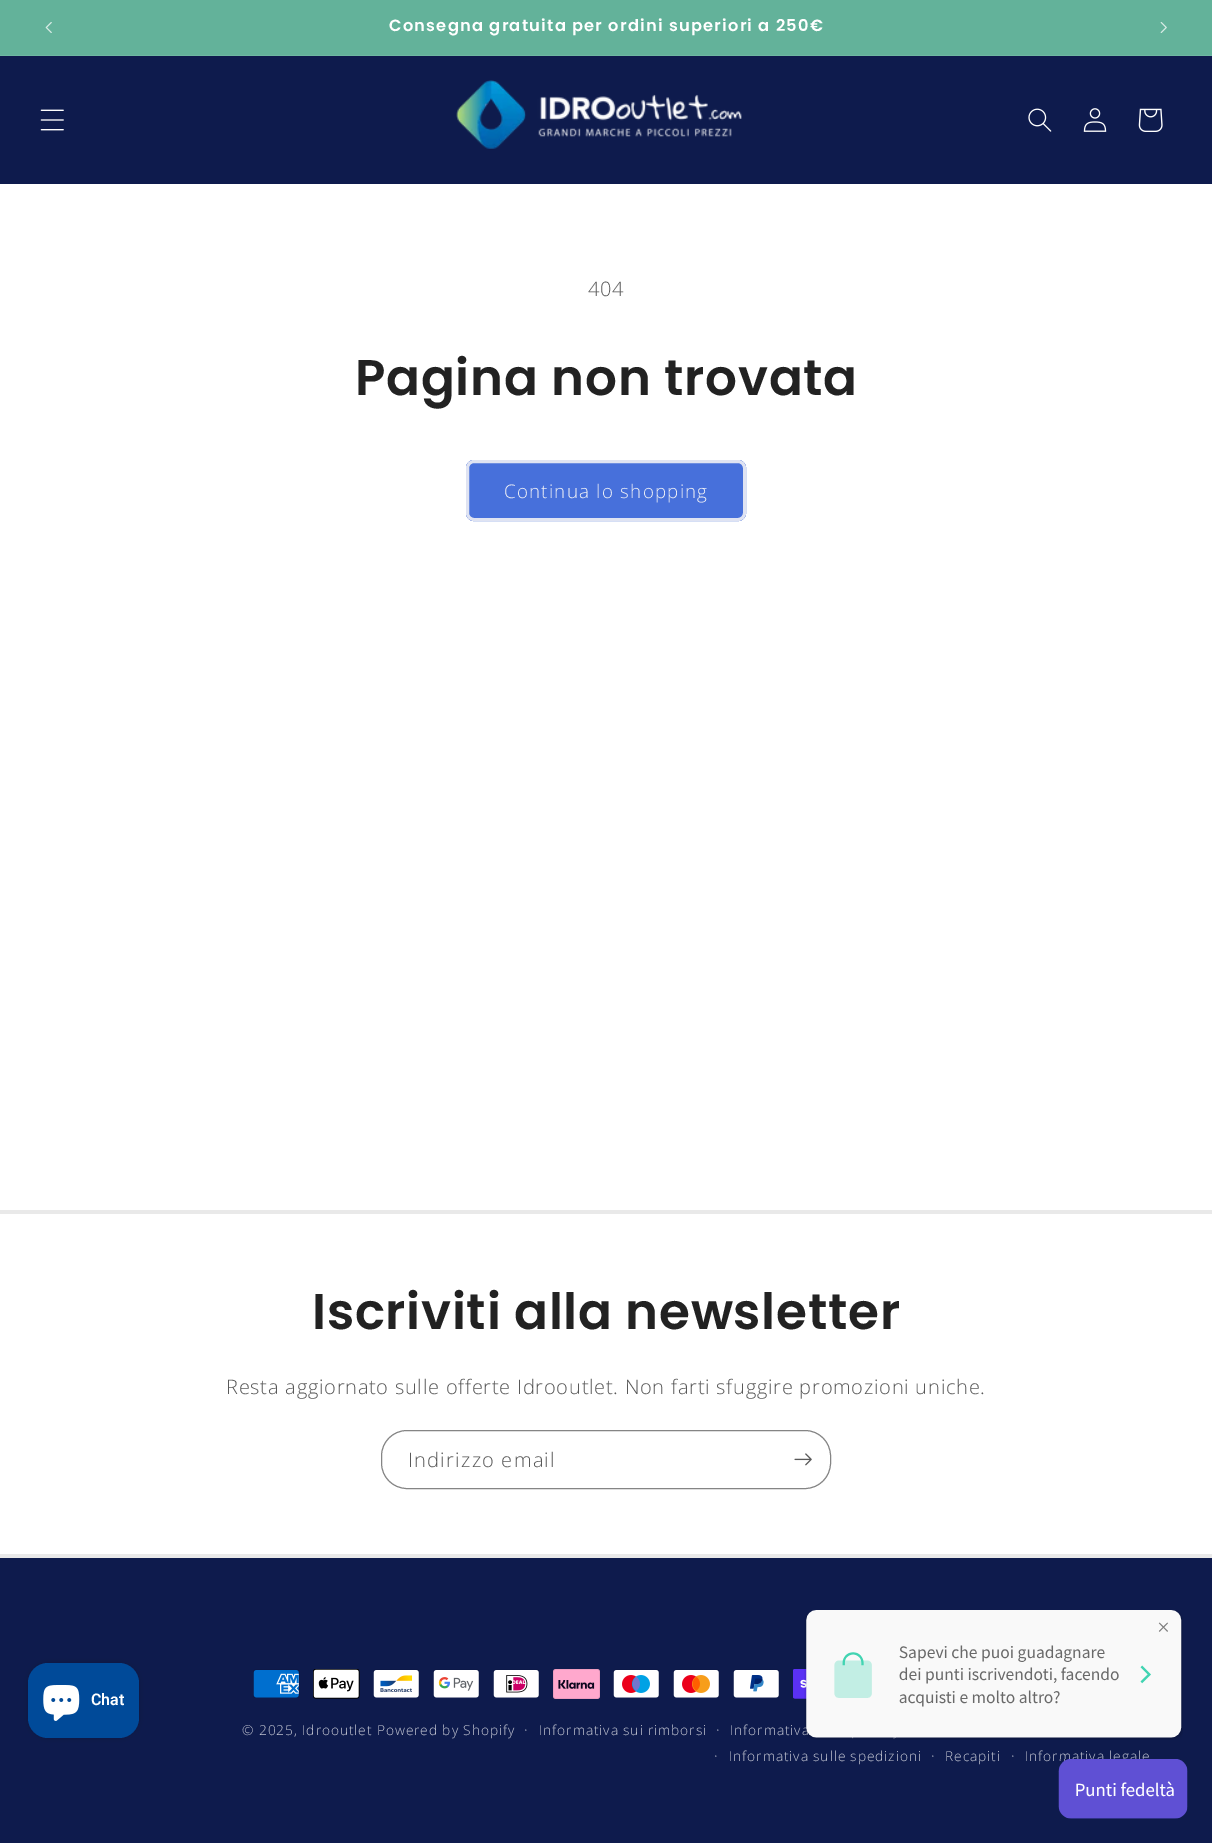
%!PS-Adobe-3.0
%%BoundingBox: 0 0 1212 1843
%%LanguageLevel: 3
%%Pages: 1
%%EndComments
%%BeginProlog
/m { moveto } bind def
/f { fill } bind def
/S { stroke } bind def
/w { setlinewidth } bind def
/fn { [ exch dup neg 0 0 3 -1 roll 0 0 ] selectfont } def
/tx { moveto show } def
/bx { rectfill } def
/al { dup .setfillconstantalpha .setstrokeconstantalpha } def
/rr { 5 dict begin { /r /h /w /y /x } { exch def } forall
  x r add y moveto x w add y 2 copy h add r arct x w add y h add x 1 index r arct
  x y h add x y r arct x y 2 copy exch w add exch r arct closepath end } def
/sh { 12 dict begin { /a /b /q /h /w /y /x } { exch def } forall gsave /was 0 def
  9 -2 -9 { dup b mul 4 div /e exch def 1 sub .425 mul 2.718 exch exp 1 add a .99 .min exch div /now exch def
    1 1 now sub 1 was sub div sub al /was now def
    w h .min e 2 mul add 0 gt { x e sub y e sub w e 2 mul add h e 2 mul add
      q e add b .6 mul add w h .min 2 div e add .min 0 .max rr fill } if } for grestore end } def
/im { 5 dict begin { /h /w /y /x /name } { exch def } forall
  gsave x y translate w h scale
  w h 8 [w 0 0 h 0 0] name (r) file false 3 colorimage grestore end } def
%%EndProlog
%%BeginSetup
<< /PageSize [1212 1843] /PageUsesTransparency true >> setpagedevice
%%EndSetup
%%Page: 1 1
0 .pushpdf14devicefilter
0 1843 translate 1 -1 scale
4 setmiterlimit
1 setgray
0 0 1212 1843 bx
0.388 0.698 0.604 setrgbcolor
0 0 1212 55 bx
0.435 0.722 0.635 setrgbcolor
0 55 1212 1 bx
(image0.raw) 45 22 7 11 im
/Poppins-SemiBold 16.25 fn
1 setgray
389 31 m 1.25 0 (Consegna gratuita per ordini superiori a 250€) ashow
(image1.raw) 1160 22 7 11 im
0.055 0.106 0.302 setrgbcolor
0 56 1212 128 bx
(image2.raw) 40 109 24 22 im
(image3.raw) 456 80 286 69 im
(image4.raw) 1028 108 24 24 im
(image5.raw) 1083 108 24 24 im
(image6.raw) 1138 108 25 24 im
/OpenSans-Light 20 fn
0.349 setgray
588 296 m 0.75 0 (404) ashow
/Poppins-SemiBold 50 fn
0.133 setgray
355 395 m 0.75 0 (Pagina non trovata) ashow
0.278 0.439 0.859 setrgbcolor
466 460 280 61 8 rr f
3 w
467.5 461.5 277 58 6.5 rr S
0.9 al
0.937 0.941 0.961 setrgbcolor
467.5 461.5 277 58 6.5 rr S
/OpenSans-Light 18.75 fn
1 al
504 498 m 1.25 0 (Continua lo shopping) ashow
0.914 setgray
0 1210 1212 4 bx
0 1554 1212 4 bx
/Poppins-SemiBold 50 fn
0.133 setgray
312 1329 m 0.75 0 (Iscriviti alla newsletter) ashow
/OpenSans-Light 20 fn
0.349 setgray
226 1394 m 0.75 0 (Resta aggiornato sulle offerte Idrooutlet. Non farti sfuggire promozioni uniche.) ashow
0.522 setgray
1 w
381.5 1430.5 449 58 25.5 rr S
0.349 setgray
408 1467 m 1.25 0 (Indirizzo email) ashow
(image7.raw) 794 1453 18 13 im
0.055 0.106 0.302 setrgbcolor
0 1558 1212 285 bx
0 setgray
28 1663 111 75 20 3 0.15 sh
0 0.29 0.6 setrgbcolor
28 1663 111 75 20 rr f
(image8.raw) 43 1685 37 36 im
/Roboto-SemiBold 16 fn
1 setgray
(Chat) 91 1705 tx
(image19.raw) 793 1669 14 30 im
/OpenSans-Light 13.75 fn
0.765 0.776 0.827 setrgbcolor
730 1735 m 0.9 0 (Informativa) ashow
(image9.raw) 804 1610 379 130 im
(image10.raw) 253 1669 47 29 im
(image11.raw) 313 1669 47 30 im
(image12.raw) 373 1669 47 29 im
(image13.raw) 433 1669 47 29 im
(image14.raw) 493 1669 47 29 im
(image15.raw) 553 1669 47 30 im
(image16.raw) 613 1669 47 29 im
(image17.raw) 673 1669 47 29 im
(image18.raw) 733 1669 47 29 im
242 1735 m 0.9 0 (© 2025, Idrooutlet) ashow
377 1735 m 0.9 0 (Powered by Shopify) ashow
/OpenSans-Light 15 fn
524 1735 m 0.9 0 (·) ashow
/OpenSans-Light 13.75 fn
539 1735 m 0.9 0 (Informativa sui rimborsi) ashow
/OpenSans-Light 15 fn
716 1735 m 0.9 0 (·) ashow
714 1761 m 0.9 0 (·) ashow
/OpenSans-Light 13.75 fn
729 1761 m 0.9 0 (Informativa sulle spedizioni) ashow
/OpenSans-Light 15 fn
931 1761 m 0.9 0 (·) ashow
/OpenSans-Light 13.75 fn
945 1761 m 0.9 0 (Recapiti) ashow
/OpenSans-Light 15 fn
1011 1761 m 0.9 0 (·) ashow
/OpenSans-Light 13.75 fn
1025 1761 m 0.9 0 (Informativa legale) ashow
(image20.raw) 1058 1759 130 60 im
.poppdf14devicefilter showpage
%%EOF
